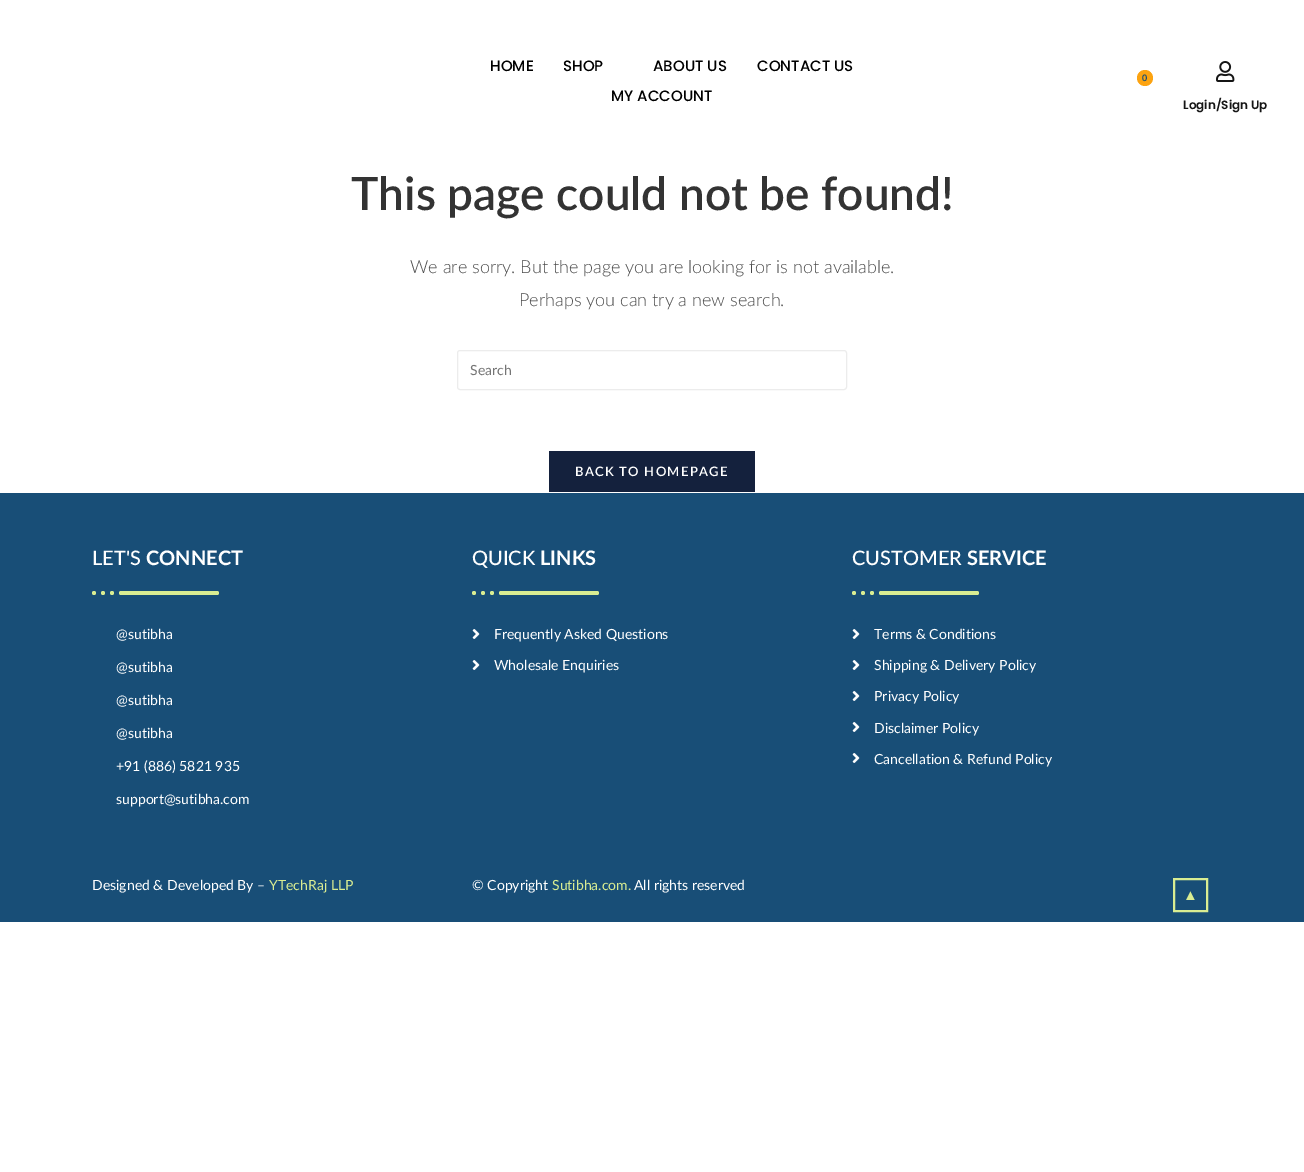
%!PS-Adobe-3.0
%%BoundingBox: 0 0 1304 1172
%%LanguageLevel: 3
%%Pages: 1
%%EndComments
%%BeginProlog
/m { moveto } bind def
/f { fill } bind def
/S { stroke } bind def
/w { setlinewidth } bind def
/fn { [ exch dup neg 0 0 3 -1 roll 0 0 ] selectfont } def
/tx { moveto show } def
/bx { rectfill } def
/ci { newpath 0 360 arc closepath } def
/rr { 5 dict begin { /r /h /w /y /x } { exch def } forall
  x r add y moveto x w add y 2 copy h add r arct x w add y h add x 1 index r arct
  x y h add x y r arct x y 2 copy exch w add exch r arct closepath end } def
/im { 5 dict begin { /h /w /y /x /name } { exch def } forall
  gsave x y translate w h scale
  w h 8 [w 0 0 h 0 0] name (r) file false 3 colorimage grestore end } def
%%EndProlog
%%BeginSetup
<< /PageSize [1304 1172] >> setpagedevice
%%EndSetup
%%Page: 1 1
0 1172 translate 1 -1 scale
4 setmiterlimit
1 setgray
0 0 1304 1172 bx
/Poppins-Medium 15 fn
0 setgray
(HOME) 490 71 tx
(SHOP) 563 71 tx
(ABOUT US) 653 71 tx
(CONTACT US) 757 71 tx
(MY ACCOUNT) 611 101 tx
0.988 0.639 0.067 setrgbcolor
1145 78 8 ci f
/Lato-Bold 9 fn
0.094 0.306 0.467 setrgbcolor
(0) 1142 81 tx
(image0.raw) 1216 61 19 21 im
/Poppins-SemiBold 12 fn
0.082 setgray
(Login/Sign Up) 1183 109 tx
/Lato-SemiBold 46 fn
0.2 setgray
(This page could not be found!) 351 210 tx
/Lato-Light 18 fn
0.29 setgray
(We are sorry. But the page you are looking for is not available.) 410 273 tx
(Perhaps you can try a new search.) 519 306 tx
0.925 setgray
457.5 350.5 389 39 2.5 rr S
/Lato-Regular 14 fn
0.459 setgray
(Search) 470 375 tx
0.078 0.129 0.239 setrgbcolor
549 451 206 41 bx
/Lato-SemiBold 13 fn
1 setgray
575 476 m 1.25 0 (BACK TO HOMEPAGE) ashow
0.094 0.306 0.467 setrgbcolor
0 493 1304 429 bx
/Lato-Medium 20 fn
1 setgray
(LET'S) 92 565 tx
/Lato-Bold 20 fn
(CONNECT) 146 565 tx
0.851 0.929 0.573 setrgbcolor
119 591 100 4 2 rr f
112 593 2 ci f
103 593 2 ci f
94 593 2 ci f
/Lato-Regular 14 fn
1 setgray
(@sutibha) 116 639 tx
(@sutibha) 116 672 tx
(@sutibha) 116 705 tx
(@sutibha) 116 738 tx
(+91 \(886\) 5821 935) 116 771 tx
(support@sutibha.com) 116 804 tx
/Lato-Medium 20 fn
(QUICK) 472 565 tx
/Lato-Bold 20 fn
(LINKS) 540 565 tx
0.851 0.929 0.573 setrgbcolor
499 591 100 4 2 rr f
492 593 2 ci f
483 593 2 ci f
474 593 2 ci f
(image1.raw) 472 629 8 10 im
/Lato-Regular 14 fn
1 setgray
(Frequently Asked Questions) 494 639 tx
(image1.raw) 472 660 8 10 im
(Wholesale Enquiries) 494 670 tx
/Lato-Medium 20 fn
(CUSTOMER) 852 565 tx
/Lato-Bold 20 fn
(SERVICE) 967 565 tx
0.851 0.929 0.573 setrgbcolor
879 591 100 4 2 rr f
872 593 2 ci f
863 593 2 ci f
854 593 2 ci f
(image1.raw) 852 629 8 10 im
/Lato-Regular 14 fn
1 setgray
(Terms & Conditions) 874 639 tx
(image1.raw) 852 660 8 10 im
(Shipping & Delivery Policy) 874 670 tx
(image1.raw) 852 691 8 10 im
(Privacy Policy) 874 701 tx
(image1.raw) 852 722 8 10 im
(Disclaimer Policy) 874 733 tx
(image1.raw) 852 753 8 10 im
(Cancellation & Refund Policy) 874 764 tx
(Designed & Developed By –) 92 890 tx
0.851 0.929 0.573 setrgbcolor
(YTechRaj LLP) 269 890 tx
1 setgray
(© Copyright) 472 890 tx
0.851 0.929 0.573 setrgbcolor
(Sutibha.com.) 552 890 tx
1 setgray
(All rights reserved) 634 890 tx
0.851 0.929 0.573 setrgbcolor
2 w
1174 879 33 32 rectstroke
/LiberationSerif-Regular 15 fn
(▲) 1183 900 tx
showpage
%%EOF
